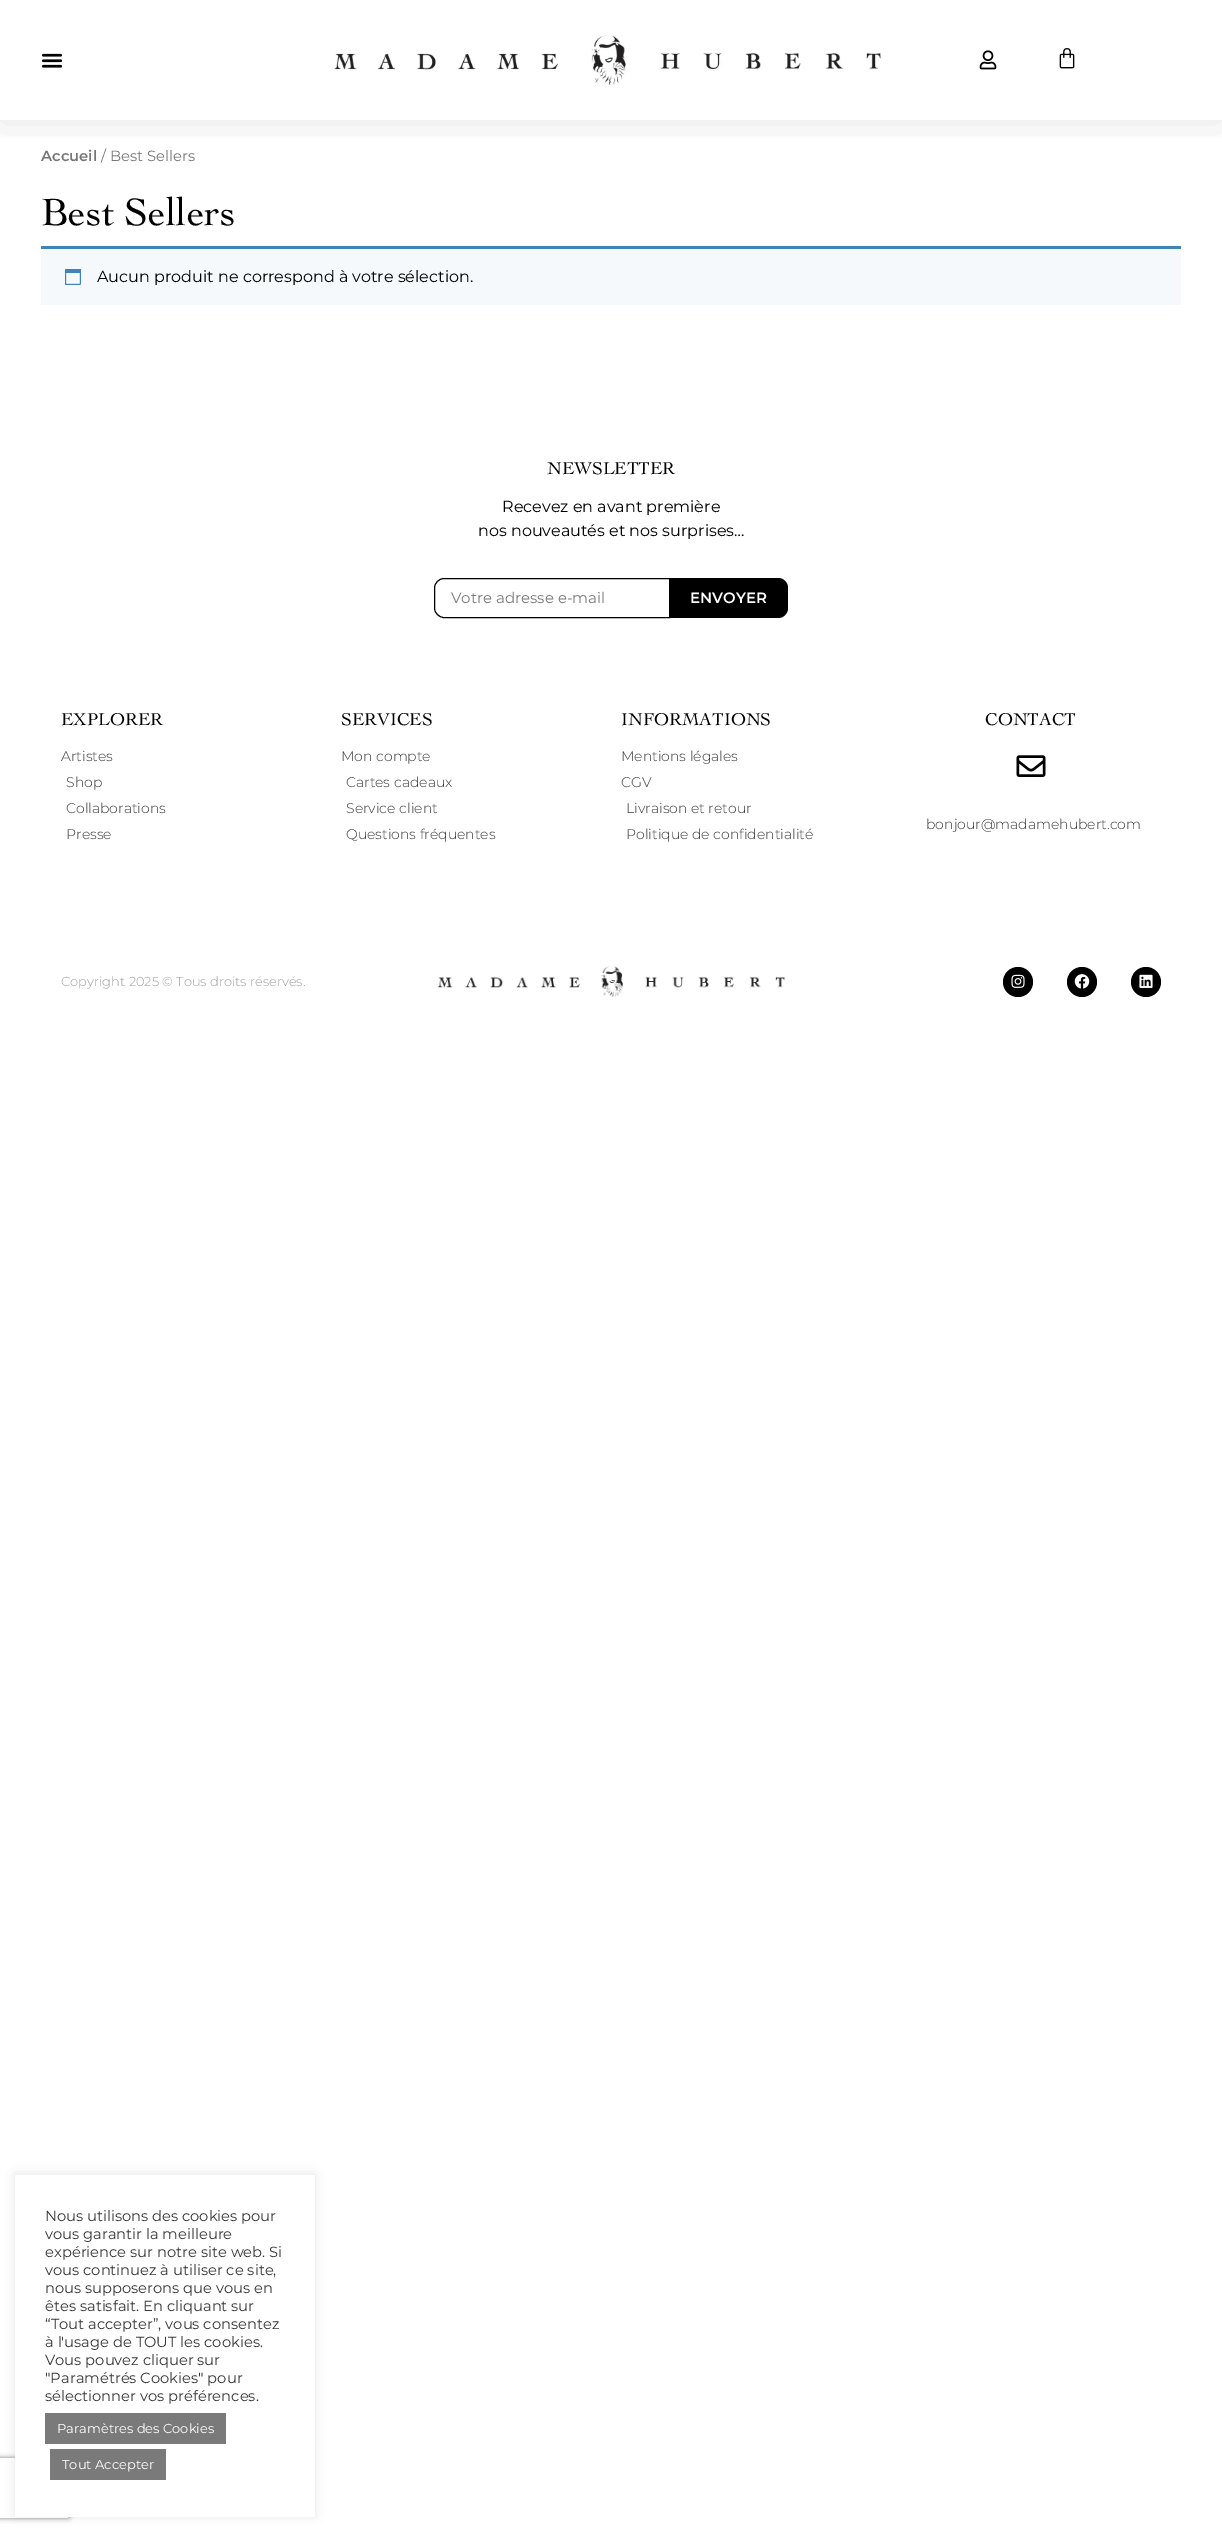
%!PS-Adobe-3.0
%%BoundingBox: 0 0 1222 2532
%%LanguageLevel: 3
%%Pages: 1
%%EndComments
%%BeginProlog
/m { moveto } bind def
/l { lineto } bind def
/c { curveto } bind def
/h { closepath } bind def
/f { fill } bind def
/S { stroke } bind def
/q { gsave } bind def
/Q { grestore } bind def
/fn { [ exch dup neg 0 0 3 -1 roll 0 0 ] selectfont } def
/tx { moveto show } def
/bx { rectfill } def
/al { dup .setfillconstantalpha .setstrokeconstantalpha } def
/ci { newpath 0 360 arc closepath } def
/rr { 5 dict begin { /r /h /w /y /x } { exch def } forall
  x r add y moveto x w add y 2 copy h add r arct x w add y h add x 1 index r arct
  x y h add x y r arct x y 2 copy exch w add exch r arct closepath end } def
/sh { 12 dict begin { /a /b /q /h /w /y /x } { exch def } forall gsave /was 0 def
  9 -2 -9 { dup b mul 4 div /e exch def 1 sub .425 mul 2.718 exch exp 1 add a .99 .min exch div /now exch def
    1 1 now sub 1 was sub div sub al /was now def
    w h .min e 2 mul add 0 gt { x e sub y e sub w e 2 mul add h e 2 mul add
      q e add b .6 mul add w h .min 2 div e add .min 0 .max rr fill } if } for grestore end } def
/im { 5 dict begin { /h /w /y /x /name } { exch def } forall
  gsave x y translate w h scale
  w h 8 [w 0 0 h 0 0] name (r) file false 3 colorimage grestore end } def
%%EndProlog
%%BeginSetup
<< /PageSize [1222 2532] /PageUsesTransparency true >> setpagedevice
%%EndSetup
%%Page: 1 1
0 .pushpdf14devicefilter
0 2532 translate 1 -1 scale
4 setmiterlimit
1 setgray
0 0 1222 2532 bx
q
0 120 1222 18 rectclip
0 setgray
0 1 1222 120 0 20 0.1 sh
Q
(image0.raw) 41 53 22 15 im
(image1.raw) 334 35 547 50 im
(image2.raw) 979 50 18 20 im
(image3.raw) 1059 48 16 21 im
/Montserrat-SemiBold 14.75 fn
0.463 setgray
(Accueil) 41 161 tx
/Montserrat-Regular 14.75 fn
(/ Best Sellers) 101 161 tx
/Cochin-Regular 40 fn
0 setgray
(Best Sellers) 41 225 tx
0.965 0.976 0.984 setrgbcolor
41 249 1140 56 bx
0.247 0.518 0.725 setrgbcolor
41 246 1140 3 bx
(image4.raw) 65 269 16 16 im
/Montserrat-Regular 16 fn
0 setgray
(Aucun produit ne correspond à votre sélection.) 97 282 tx
/Cochin-Regular 18 fn
(NEWSLETTER) 547 474 tx
/Montserrat-Regular 16 fn
(Recevez en avant première) 502 512 tx
(nos nouveautés et nos surprises…) 478 536 tx
444 578.5 m 669.5 578.5 l 669.5 617.5 l 444 617.5 l 439 617.5 434.5 613 434.5 608 c 434.5 588 l 434.5 583 439 578.5 444 578.5 c h S
/Montserrat-Regular 15 fn
0.475 0.478 0.486 setrgbcolor
(Votre adresse e-mail) 451 603 tx
0 setgray
670 578 m 778 578 l 783.5 578 788 582.5 788 588 c 788 608 l 788 613.5 783.5 618 778 618 c 670 618 l h f
/Montserrat-SemiBold 15 fn
1 setgray
(ENVOYER) 690 603 tx
q
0 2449 m 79 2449 l 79 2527 l 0 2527 l h -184 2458 m 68 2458 l 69 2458 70 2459 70 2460 c 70 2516 l 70 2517 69 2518 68 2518 c -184 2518 l -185 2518 -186 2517 -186 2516 c -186 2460 l -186 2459 -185 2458 -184 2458 c h eoclip newpath
0.502 setgray
-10 2458 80 60 2 2.5 1 sh
Q
/Cochin-Regular 18 fn
0 setgray
(EXPLORER) 61 725 tx
/Montserrat-Light 14 fn
0.212 setgray
(Artistes) 61 761 tx
(Shop) 66 787 tx
(Collaborations) 66 813 tx
(Presse) 66 839 tx
/Cochin-Regular 18 fn
0 setgray
(SERVICES) 341 725 tx
/Montserrat-Light 14 fn
0.212 setgray
(Mon compte) 341 761 tx
(Cartes cadeaux) 346 787 tx
(Service client) 346 813 tx
(Questions fréquentes) 346 839 tx
/Cochin-Regular 18 fn
0 setgray
(INFORMATIONS) 621 725 tx
/Montserrat-Light 14 fn
0.212 setgray
(Mentions légales) 621 761 tx
(CGV) 621 787 tx
(Livraison et retour) 626 813 tx
(Politique de confidentialité) 626 839 tx
/Cochin-Regular 18 fn
0 setgray
(CONTACT) 985 725 tx
(image5.raw) 1016 755 30 22 im
/Montserrat-Light 14 fn
0.212 setgray
(bonjour@madamehubert.com) 926 829 tx
/Montserrat-Light 13 fn
0.612 setgray
(Copyright 2025 © Tous droits réservés.) 61 986 tx
(image6.raw) 437 966 349 31 im
0 setgray
1018 982 15 ci f
(image7.raw) 1011 974 14 14 im
1082 982 15 ci f
(image8.raw) 1074 974 16 15 im
1146 982 15 ci f
(image9.raw) 1139 974 14 14 im
0.675 0.671 0.671 setrgbcolor
15 2174 300 342 0 5 0.3 sh
1 setgray
15 2175 300 342 bx
/Montserrat-Regular 14.7 fn
0.212 setgray
(Nous utilisons des cookies pour) 45 2221 tx
(vous garantir la meilleure) 45 2239 tx
(expérience sur notre site web. Si) 45 2257 tx
(vous continuez à utiliser ce site,) 45 2275 tx
(nous supposerons que vous en) 45 2293 tx
(êtes satisfait. En cliquant sur) 45 2311 tx
(“Tout accepter”, vous consentez) 45 2329 tx
(à l'usage de TOUT les cookies.) 45 2347 tx
(Vous pouvez cliquer sur) 45 2365 tx
("Paramétrés Cookies" pour) 45 2383 tx
(sélectionner vos préférences.) 45 2401 tx
0.478 setgray
45 2413 181 31 bx
/Montserrat-Regular 13 fn
1 setgray
(Paramètres des Cookies) 57 2433 tx
0.478 setgray
50 2449 116 31 bx
1 setgray
(Tout Accepter) 62 2469 tx
.poppdf14devicefilter showpage
%%EOF
